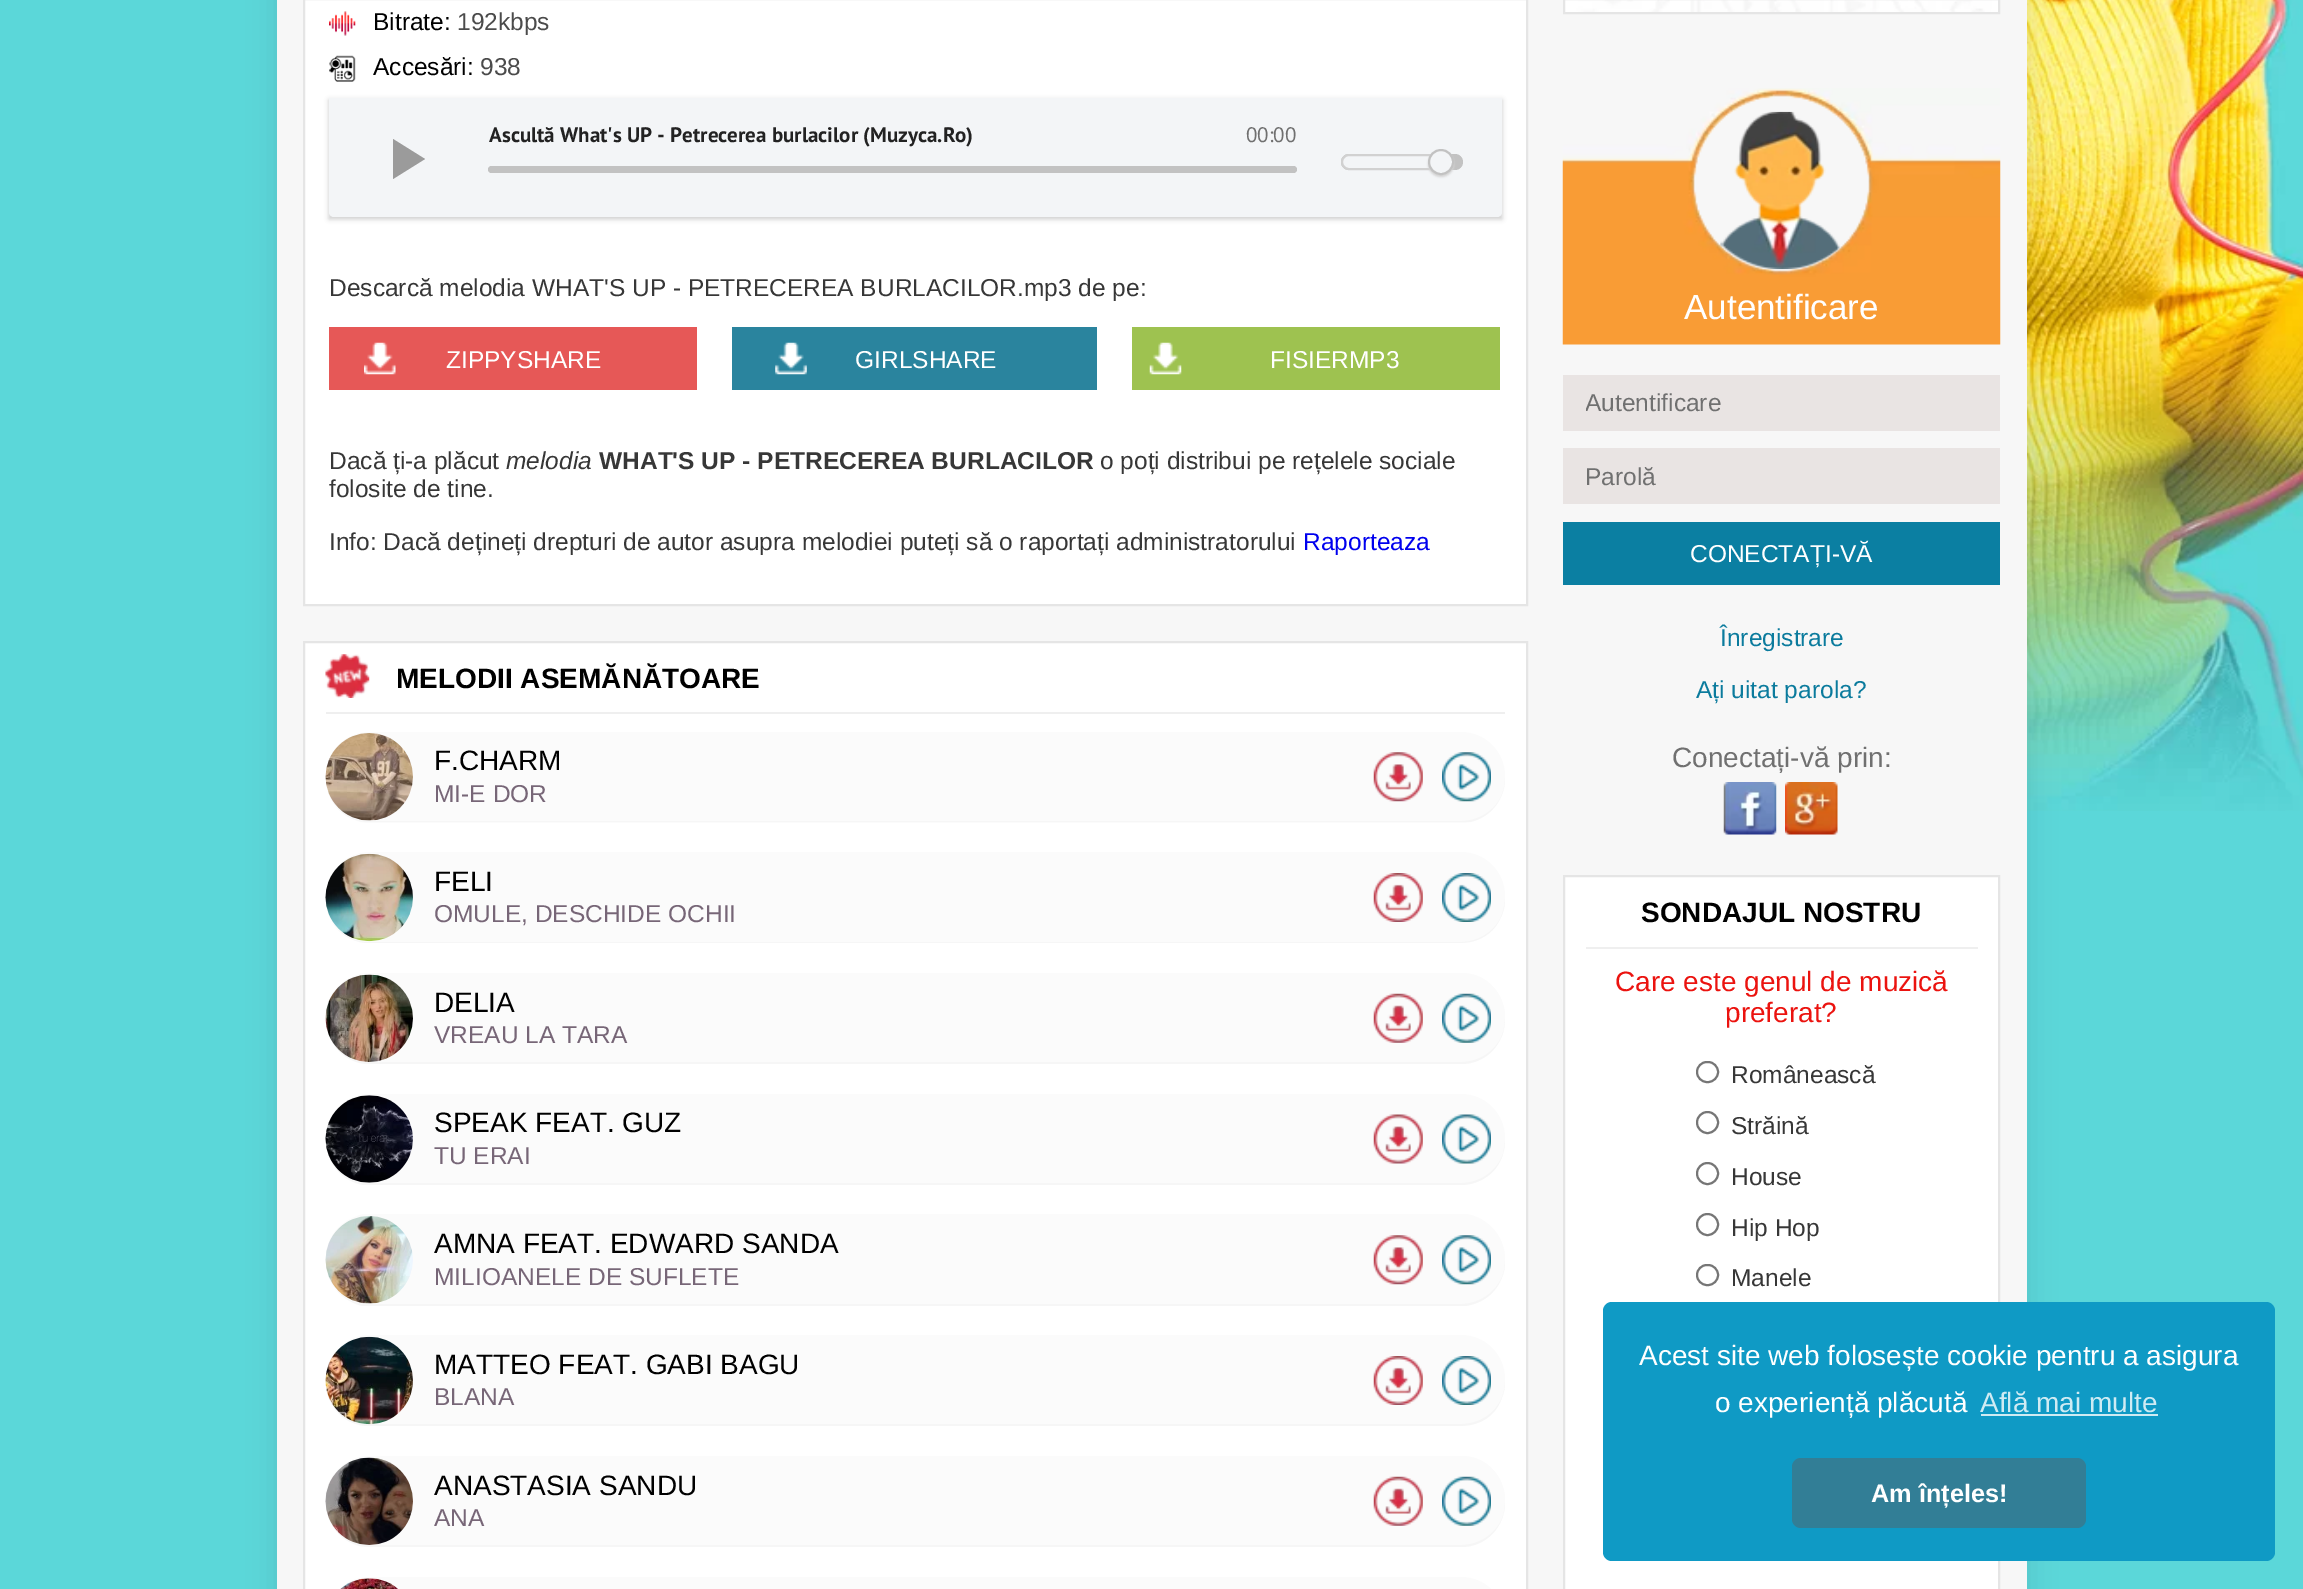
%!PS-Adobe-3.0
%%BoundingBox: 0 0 2303 1589
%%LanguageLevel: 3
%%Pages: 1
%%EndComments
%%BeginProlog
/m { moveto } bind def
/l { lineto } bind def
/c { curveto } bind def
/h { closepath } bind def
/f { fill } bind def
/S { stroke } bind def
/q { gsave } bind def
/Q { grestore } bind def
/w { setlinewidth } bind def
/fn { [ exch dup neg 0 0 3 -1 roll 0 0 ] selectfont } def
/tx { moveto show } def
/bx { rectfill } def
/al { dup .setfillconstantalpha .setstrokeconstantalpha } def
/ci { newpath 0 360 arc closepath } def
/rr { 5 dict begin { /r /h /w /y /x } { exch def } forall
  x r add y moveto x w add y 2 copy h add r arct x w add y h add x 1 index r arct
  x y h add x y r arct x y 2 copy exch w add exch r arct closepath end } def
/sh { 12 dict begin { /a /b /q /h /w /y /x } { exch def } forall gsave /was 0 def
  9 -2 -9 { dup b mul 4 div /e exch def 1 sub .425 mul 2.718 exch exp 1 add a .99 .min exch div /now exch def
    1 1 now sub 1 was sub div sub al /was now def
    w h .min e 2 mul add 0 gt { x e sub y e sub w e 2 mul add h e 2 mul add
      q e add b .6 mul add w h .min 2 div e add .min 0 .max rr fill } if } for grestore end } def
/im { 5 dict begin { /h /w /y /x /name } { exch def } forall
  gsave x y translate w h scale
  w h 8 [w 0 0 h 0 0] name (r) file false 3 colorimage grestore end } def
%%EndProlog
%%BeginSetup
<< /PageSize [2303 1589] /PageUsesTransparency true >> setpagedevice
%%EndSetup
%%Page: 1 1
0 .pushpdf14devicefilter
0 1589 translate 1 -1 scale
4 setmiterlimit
0.357 0.843 0.851 setrgbcolor
0 0 2303 1589 bx
(image0.raw) 2027 0 276 811 im
0.067 0.067 0.102 setrgbcolor
277 -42 1750 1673 0 14 0.1 sh
0.969 setgray
277 0 1750 1589 bx
1 setgray
304 -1 m 1527 -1 l 1527 605 l 304 605 l h q f Q
0.898 setgray
2 w
S
(image1.raw) 329 11 27 25 im
/LiberationSans-Regular 24.5 fn
0 setgray
(Bitrate:) 373 30 tx
0.294 setgray
(192kbps) 457 30 tx
(image2.raw) 329 55 27 27 im
0 setgray
(Accesări:) 373 75 tx
0.294 setgray
(938) 480 75 tx
0 setgray
329 100 1173 119 0 2.5 0.2 sh
0.953 0.961 0.969 setrgbcolor
329 98 m 1502 98 l 1502 212 l 1502 215 1500 217 1497 217 c 334 217 l 331 217 329 215 329 212 c h f
/PTSans-Bold 21 fn
0.133 setgray
(Ascultă What's UP - Petrecerea burlacilor \(Muzyca.Ro\)) 489 142 tx
/PTSans-Regular 21 fn
0.439 setgray
(00:00) 1246 142 tx
0.761 setgray
488 166 809 7 3.5 rr f
0.608 setgray
393 139 m 393 179 l 425 159 l h f
0.761 setgray
1341 154 122 16 8 rr f
0.953 0.961 0.969 setrgbcolor
1342 155 99 14 7 rr q f Q
0.82 setgray
S
0.831 setgray
1428 151 26 26 13 1 1 sh
0.953 0.961 0.969 setrgbcolor
1441 162 12 ci q f Q
0.761 setgray
S
/LiberationSans-Regular 24.5 fn
0.216 setgray
(Descarcă melodia WHAT'S UP - PETRECEREA BURLACILOR.mp3 de pe:) 329 296 tx
0.902 0.345 0.341 setrgbcolor
329 327 368 63 bx
(image3.raw) 364 342 32 33 im
1 setgray
(ZIPPYSHARE) 446 368 tx
0.165 0.518 0.62 setrgbcolor
732 327 365 63 bx
(image4.raw) 775 342 32 33 im
1 setgray
(GIRLSHARE) 855 368 tx
0.62 0.761 0.314 setrgbcolor
1132 327 368 63 bx
(image5.raw) 1149 342 33 33 im
1 setgray
(FISIERMP3) 1270 368 tx
0.216 setgray
(Dacă ți-a plăcut) 329 469 tx
/LiberationSans-Italic 24.5 fn
(melodia) 506 469 tx
/LiberationSans-Bold 24.5 fn
(WHAT'S UP - PETRECEREA BURLACILOR) 599 469 tx
/LiberationSans-Regular 24.5 fn
(o poți distribui pe rețelele sociale) 1100 469 tx
(folosite de tine.) 329 497 tx
(Info: Dacă dețineți drepturi de autor asupra melodiei puteți să o raportați administratorului) 329 550 tx
0 0 0.933 setrgbcolor
(Raporteaza) 1303 550 tx
1 setgray
304 642 m 1527 642 l 1527 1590 l 304 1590 l h q f Q
0.898 setgray
S
0.937 setgray
326 712 1179 2 bx
(image6.raw) 325 654 45 44 im
/LiberationSans-Bold 28 fn
0 setgray
(MELODII ASEMĂNĂTOARE) 396 688 tx
0.984 setgray
326 732 1179 91 44 rr f
0.965 setgray
1505 779 m 1505 777 l 1505 783 1504 789 1502 794 c 1496 810 1479 821 1461 821 c 369 821 l 345 821 326 802 326 779 c 326 777 l 326 782 l 328 803 344 822 369 822 c 1470 822 l 1487 818 1497 807 1502 794 c 1504 789 1505 784 1505 779 c h f
(image7.raw) 325 733 88 88 im
/LiberationSans-Regular 28 fn
0 setgray
(F.CHARM) 434 770 tx
/LiberationSans-Regular 24.5 fn
0.467 0.4 0.467 setrgbcolor
(MI-E DOR) 434 802 tx
(image8.raw) 1373 752 50 50 im
(image9.raw) 1442 752 49 50 im
0.984 setgray
326 852 1179 91 44 rr f
0.965 setgray
1505 900 m 1505 898 l 1505 905 1503 912 1500 919 c 1493 932 1478 942 1461 942 c 369 942 l 345 942 326 923 326 900 c 326 898 l 326 903 l 328 924 344 943 369 943 c 1461 943 l 1470 942 l 1485 939 1495 930 1500 919 c 1503 913 1505 907 1505 900 c h f
(image10.raw) 325 853 88 89 im
/LiberationSans-Regular 28 fn
0 setgray
(FELI) 434 891 tx
/LiberationSans-Regular 24.5 fn
0.467 0.4 0.467 setrgbcolor
(OMULE, DESCHIDE OCHII) 434 922 tx
(image11.raw) 1373 873 50 49 im
(image12.raw) 1442 873 49 49 im
0.984 setgray
326 973 1179 91 44 rr f
369 973 m 349 973 331 988 326 1007 c 325 1011 326 1015 326 1018 c 326 1017 l 326 994 345 975 369 975 c 1461 975 l 1478 975 1493 985 1501 999 c 1494 984 1481 973 1461 973 c h 1505 1017 m 1505 1010 1503 1004 1501 999 c 1503 1005 1505 1012 1505 1018 c h eofill
0.965 setgray
369 1064 m 1461 1064 l 1487 1064 1505 1043 1505 1018 c 1505 1023 1504 1028 1503 1033 c 1497 1050 1480 1062 1461 1062 c 369 1062 l 345 1062 326 1043 326 1020 c 326 1018 l 326 1043 344 1064 369 1064 c h f
(image13.raw) 325 974 88 88 im
/LiberationSans-Regular 28 fn
0 setgray
(DELIA) 434 1012 tx
/LiberationSans-Regular 24.5 fn
0.467 0.4 0.467 setrgbcolor
(VREAU LA TARA) 434 1043 tx
(image14.raw) 1373 993 50 50 im
(image15.raw) 1442 993 49 50 im
0.984 setgray
326 1094 1179 91 44 rr f
0.965 setgray
364 1185 m 341 1182 326 1162 326 1139 c 326 1141 l 326 1164 345 1183 369 1183 c 1461 1183 l 1480 1183 1497 1171 1503 1154 c 1499 1168 1488 1180 1470 1184 c 1463 1185 l h 1505 1141 m 1505 1139 l 1505 1144 1504 1149 1503 1154 c 1504 1150 1505 1145 1505 1141 c h eofill
(image16.raw) 325 1095 88 88 im
/LiberationSans-Regular 28 fn
0 setgray
(SPEAK FEAT. GUZ) 434 1132 tx
/LiberationSans-Regular 24.5 fn
0.467 0.4 0.467 setrgbcolor
(TU ERAI) 434 1164 tx
(image17.raw) 1373 1114 50 50 im
(image18.raw) 1442 1114 49 50 im
0.984 setgray
326 1215 1179 91 44 rr f
369 1216 m 344 1216 326 1236 326 1260 c 326 1254 l 327 1242 333 1230 345 1222 c 350 1218 357 1216 363 1214 c 1467 1214 l 1482 1217 1493 1226 1499 1237 c 1491 1224 1477 1216 1461 1216 c h 1505 1260 m 1505 1252 1503 1244 1499 1237 c 1503 1244 1505 1252 1505 1260 c h eofill
0.965 setgray
363 1306 m 341 1302 326 1282 326 1260 c 326 1262 l 326 1285 345 1304 369 1304 c 1461 1304 l 1479 1304 1495 1293 1502 1277 c 1497 1290 1487 1301 1470 1305 c 1466 1306 l h 1505 1262 m 1505 1260 l 1505 1266 1504 1272 1502 1277 c 1504 1273 1505 1267 1505 1262 c h eofill
(image19.raw) 325 1216 88 88 im
/LiberationSans-Regular 28 fn
0 setgray
(AMNA FEAT. EDWARD SANDA) 434 1253 tx
/LiberationSans-Regular 24.5 fn
0.467 0.4 0.467 setrgbcolor
(MILIOANELE DE SUFLETE) 434 1285 tx
(image8.raw) 1373 1235 50 50 im
(image9.raw) 1442 1235 49 50 im
0.984 setgray
326 1335 1179 91 44 rr f
0.965 setgray
1505 1382 m 1505 1381 l 1505 1386 1504 1392 1502 1397 c 1496 1413 1480 1424 1461 1424 c 369 1424 l 345 1424 326 1406 326 1382 c 326 1381 l 326 1386 l 328 1407 344 1426 369 1426 c 1461 1426 l 1470 1425 l 1487 1422 1498 1411 1502 1397 c 1504 1393 1505 1387 1505 1382 c h f
(image20.raw) 325 1336 88 89 im
/LiberationSans-Regular 28 fn
0 setgray
(MATTEO FEAT. GABI BAGU) 434 1374 tx
/LiberationSans-Regular 24.5 fn
0.467 0.4 0.467 setrgbcolor
(BLANA) 434 1405 tx
(image11.raw) 1373 1356 50 49 im
(image12.raw) 1442 1356 49 49 im
0.984 setgray
326 1456 1179 91 44 rr f
369 1456 m 349 1456 331 1471 326 1490 c 325 1494 326 1498 326 1502 c 326 1500 l 326 1477 345 1458 369 1458 c 1461 1458 l 1478 1458 1493 1468 1501 1482 c 1494 1467 1481 1456 1461 1456 c h 1505 1500 m 1505 1493 1503 1487 1501 1482 c 1503 1488 1505 1495 1505 1502 c h eofill
0.965 setgray
369 1547 m 1461 1547 l 1487 1547 1505 1526 1505 1502 c 1505 1506 1504 1511 1503 1516 c 1497 1533 1480 1545 1461 1545 c 369 1545 l 345 1545 326 1526 326 1503 c 326 1502 l 326 1526 344 1547 369 1547 c h f
(image21.raw) 325 1457 88 88 im
/LiberationSans-Regular 28 fn
0 setgray
(ANASTASIA SANDU) 434 1495 tx
/LiberationSans-Regular 24.5 fn
0.467 0.4 0.467 setrgbcolor
(ANA) 434 1526 tx
(image14.raw) 1373 1476 50 50 im
(image15.raw) 1442 1476 49 50 im
0.984 setgray
326 1577 1179 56 44 rr f
(image22.raw) 340 1578 58 11 im
(image23.raw) 1565 0 433 12 im
0.898 setgray
1564 -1 435 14 rectstroke
(image25.raw) 1720 111 121 159 im
(image24.raw) 1562 88 439 257 im
/LiberationSans-Regular 35 fn
1 setgray
(Autentificare) 1684 319 tx
0.914 0.894 0.89 setrgbcolor
1563 375 437 56 bx
q
1586 389 393 28 rectclip
/LiberationSans-Regular 24.5 fn
0.439 setgray
(Autentificare) 1585 411 tx
Q
1563 448 437 56 bx
/LiberationSans-Regular 24.5 fn
0.439 setgray
(Parolă) 1585 485 tx
0.043 0.498 0.635 setrgbcolor
1563 522 437 63 bx
1 setgray
(CONECTAȚI-VĂ) 1690 562 tx
0.043 0.482 0.616 setrgbcolor
(Înregistrare) 1720 646 tx
(Ați uitat parola?) 1696 698 tx
/LiberationSans-Regular 28 fn
0.439 setgray
(Conectați-vă prin:) 1672 767 tx
(image26.raw) 1723 782 54 53 im
(image27.raw) 1785 782 53 53 im
1 setgray
1564 876 m 1999 876 l 1999 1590 l 1564 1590 l h q f Q
0.898 setgray
S
0.937 setgray
1586 947 392 2 bx
/LiberationSans-Bold 28 fn
0 setgray
(SONDAJUL NOSTRU) 1641 922 tx
/LiberationSans-Regular 28 fn
0.922 0.075 0.059 setrgbcolor
(Care este genul de muzică) 1615 991 tx
(preferat?) 1725 1022 tx
0.463 setgray
1697 1062 21 20 10 rr S
/LiberationSans-Regular 24.5 fn
0.216 setgray
(Românească) 1731 1083 tx
0.463 setgray
1707.5 1122.5 10.5 ci S
0.216 setgray
(Străină) 1731 1134 tx
0.463 setgray
1707.5 1173.5 10.5 ci S
0.216 setgray
(House) 1731 1185 tx
0.463 setgray
1707.5 1224.5 10.5 ci S
0.216 setgray
(Hip Hop) 1731 1236 tx
0.463 setgray
1697 1265 21 20 10 rr S
0.216 setgray
(Manele) 1731 1286 tx
0.059 0.604 0.773 setrgbcolor
1603 1302 672 259 9 rr f
/LiberationSans-Regular 28 fn
1 setgray
(Acest site web folosește cookie pentru a asigura) 1639 1365 tx
(o experiență plăcută) 1715 1412 tx
0.812 0.922 0.953 setrgbcolor
(Află mai multe) 1980 1412 tx
1981 1414 177 2 bx
0.196 0.494 0.588 setrgbcolor
1792 1458 294 70 9 rr f
/LiberationSans-Bold 25.25 fn
1 setgray
(Am înțeles!) 1871 1502 tx
.poppdf14devicefilter showpage
%%EOF
